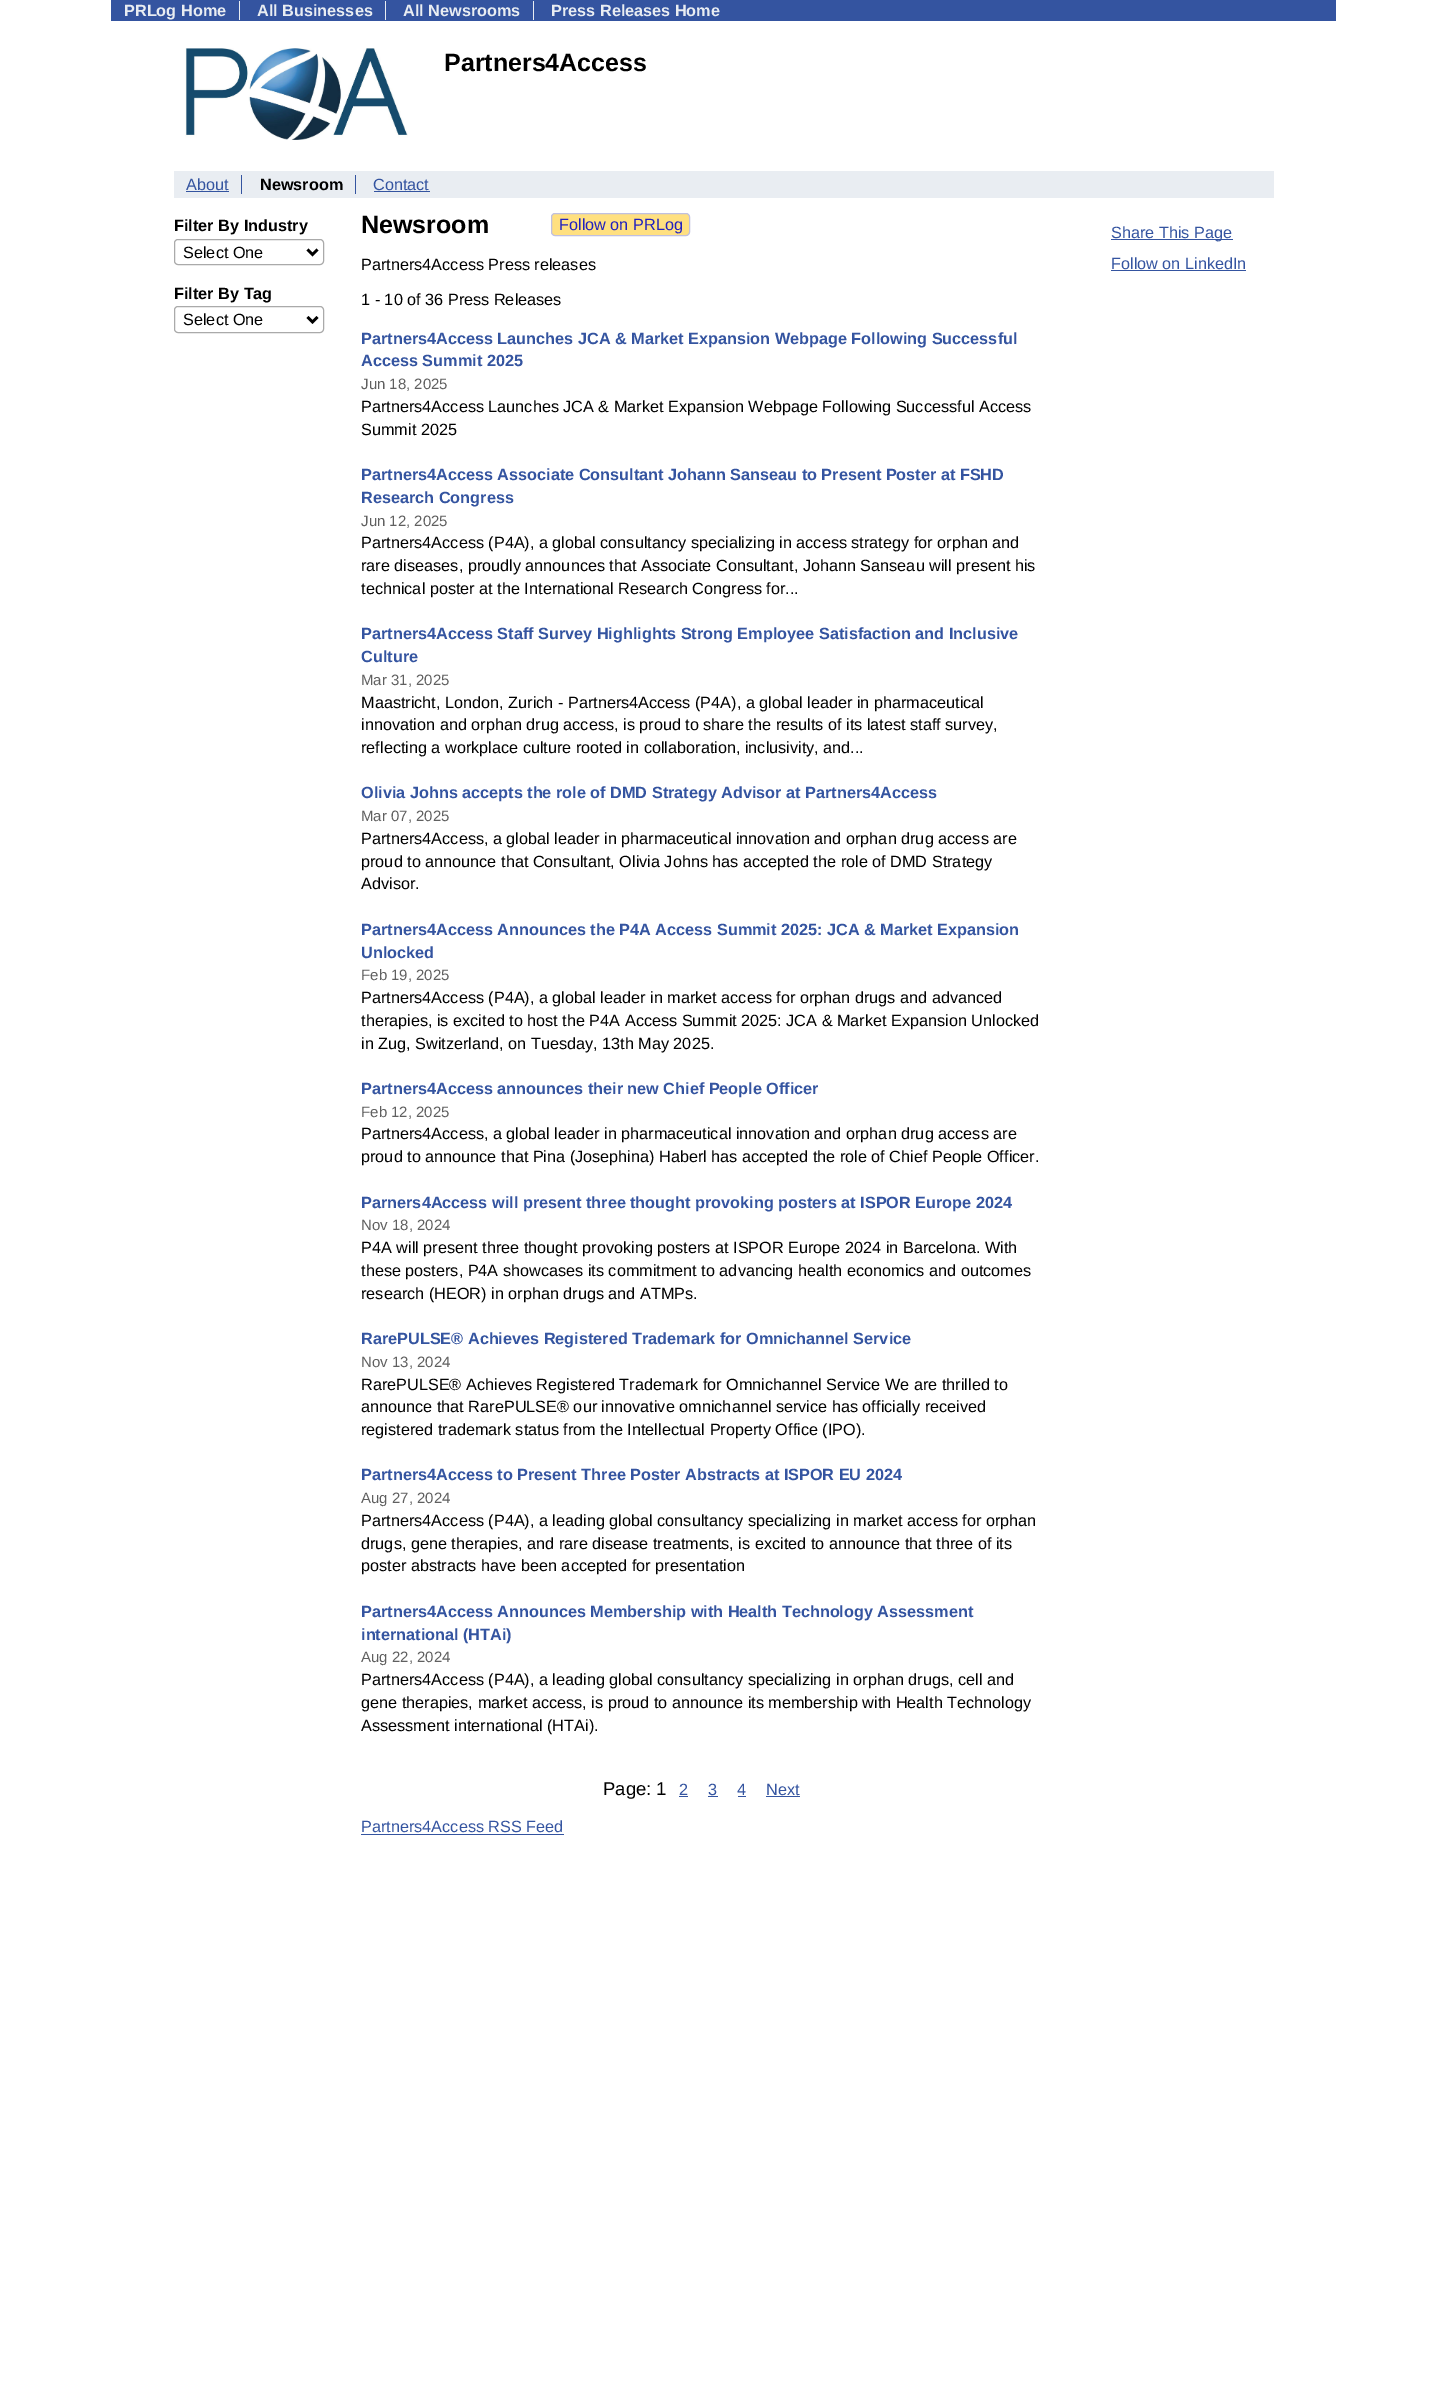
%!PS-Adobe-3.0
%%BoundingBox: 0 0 1447 2384
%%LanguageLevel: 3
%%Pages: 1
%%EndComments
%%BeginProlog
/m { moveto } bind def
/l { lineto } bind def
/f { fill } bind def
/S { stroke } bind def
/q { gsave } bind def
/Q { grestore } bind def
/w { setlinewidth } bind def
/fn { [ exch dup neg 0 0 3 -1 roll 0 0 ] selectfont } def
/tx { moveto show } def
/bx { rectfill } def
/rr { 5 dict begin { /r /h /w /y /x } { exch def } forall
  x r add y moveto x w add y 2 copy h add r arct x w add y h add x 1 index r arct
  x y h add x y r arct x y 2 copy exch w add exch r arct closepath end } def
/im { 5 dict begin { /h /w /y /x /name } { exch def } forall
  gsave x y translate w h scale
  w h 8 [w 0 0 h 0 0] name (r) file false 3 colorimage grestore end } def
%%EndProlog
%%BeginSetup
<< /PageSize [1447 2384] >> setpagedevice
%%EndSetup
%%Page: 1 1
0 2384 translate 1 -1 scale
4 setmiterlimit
1 setgray
0 0 1447 2384 bx
0.204 0.329 0.627 setrgbcolor
111 0 1225 21 bx
0.914 0.929 0.949 setrgbcolor
239 1 1 19 bx
/LiberationSans-Bold 16.25 fn
(PRLog Home) 124 16 tx
385 1 1 19 bx
(All Businesses) 257 16 tx
533 1 1 19 bx
(All Newsrooms) 403 16 tx
(Press Releases Home) 551 16 tx
(image0.raw) 185 48 223 92 im
/LiberationSans-Bold 25 fn
0 setgray
(Partners4Access) 444 71 tx
0.914 0.929 0.949 setrgbcolor
174 171 1100 27 bx
0.204 0.329 0.627 setrgbcolor
241 175 1 19 bx
/LiberationSans-Regular 16.25 fn
(About) 186 190 tx
186 191 43 1 bx
355 175 1 19 bx
/LiberationSans-Bold 16.25 fn
0 setgray
(Newsroom) 260 190 tx
/LiberationSans-Regular 16.25 fn
0.204 0.329 0.627 setrgbcolor
(Contact) 373 190 tx
374 191 56 1 bx
/LiberationSans-Bold 16.25 fn
0 setgray
(Filter By Industry) 174 231 tx
0.667 setgray
174.5 239.5 149 25 3.5 rr S
0 setgray
2.5 w
307.5 249.5 m 312.5 254.5 l 317.5 249.5 l S
/LiberationSans-Regular 16.25 fn
(Select One) 183 258 tx
/LiberationSans-Bold 16.25 fn
(Filter By Tag) 174 299 tx
0.667 setgray
1 w
174.5 306.5 149 26 3.5 rr S
0 setgray
2.5 w
307.5 317 m 312.5 322 l 317.5 317 l S
/LiberationSans-Regular 16.25 fn
(Select One) 183 325 tx
/LiberationSans-Bold 25 fn
(Newsroom) 361 233 tx
1 0.878 0.502 setrgbcolor
551.5 213.5 138 22 3.5 rr q f Q
0.753 0.753 0.878 setrgbcolor
1 w
S
/LiberationSans-Regular 16.25 fn
0.125 0.125 0.753 setrgbcolor
(Follow on PRLog) 559 230 tx
0 setgray
(Partners4Access Press releases) 361 270 tx
(1 - 10 of 36 Press Releases) 361 305 tx
/LiberationSans-Bold 16.25 fn
0.204 0.329 0.627 setrgbcolor
(Partners4Access Launches JCA & Market Expansion Webpage Following Successful) 361 344 tx
(Access Summit 2025) 361 366 tx
/LiberationSans-Regular 15 fn
0.376 setgray
(Jun 18, 2025) 361 389 tx
/LiberationSans-Regular 16.25 fn
0 setgray
(Partners4Access Launches JCA & Market Expansion Webpage Following Successful Access) 361 412 tx
(Summit 2025) 361 435 tx
/LiberationSans-Bold 16.25 fn
0.204 0.329 0.627 setrgbcolor
(Partners4Access Associate Consultant Johann Sanseau to Present Poster at FSHD) 361 480 tx
(Research Congress) 361 503 tx
/LiberationSans-Regular 15 fn
0.376 setgray
(Jun 12, 2025) 361 526 tx
/LiberationSans-Regular 16.25 fn
0 setgray
(Partners4Access \(P4A\), a global consultancy specializing in access strategy for orphan and) 361 548 tx
(rare diseases, proudly announces that Associate Consultant, Johann Sanseau will present his) 361 571 tx
(technical poster at the International Research Congress for...) 361 594 tx
/LiberationSans-Bold 16.25 fn
0.204 0.329 0.627 setrgbcolor
(Partners4Access Staff Survey Highlights Strong Employee Satisfaction and Inclusive) 361 639 tx
(Culture) 361 662 tx
/LiberationSans-Regular 15 fn
0.376 setgray
(Mar 31, 2025) 361 685 tx
/LiberationSans-Regular 16.25 fn
0 setgray
(Maastricht, London, Zurich - Partners4Access \(P4A\), a global leader in pharmaceutical) 361 708 tx
(innovation and orphan drug access, is proud to share the results of its latest staff survey,) 361 730 tx
(reflecting a workplace culture rooted in collaboration, inclusivity, and...) 361 753 tx
/LiberationSans-Bold 16.25 fn
0.204 0.329 0.627 setrgbcolor
(Olivia Johns accepts the role of DMD Strategy Advisor at Partners4Access) 361 798 tx
/LiberationSans-Regular 15 fn
0.376 setgray
(Mar 07, 2025) 361 821 tx
/LiberationSans-Regular 16.25 fn
0 setgray
(Partners4Access, a global leader in pharmaceutical innovation and orphan drug access are) 361 844 tx
(proud to announce that Consultant, Olivia Johns has accepted the role of DMD Strategy) 361 867 tx
(Advisor.) 361 889 tx
/LiberationSans-Bold 16.25 fn
0.204 0.329 0.627 setrgbcolor
(Partners4Access Announces the P4A Access Summit 2025: JCA & Market Expansion) 361 935 tx
(Unlocked) 361 958 tx
/LiberationSans-Regular 15 fn
0.376 setgray
(Feb 19, 2025) 361 980 tx
/LiberationSans-Regular 16.25 fn
0 setgray
(Partners4Access \(P4A\), a global leader in market access for orphan drugs and advanced) 361 1003 tx
(therapies, is excited to host the P4A Access Summit 2025: JCA & Market Expansion Unlocked) 361 1026 tx
(in Zug, Switzerland, on Tuesday, 13th May 2025.) 361 1049 tx
/LiberationSans-Bold 16.25 fn
0.204 0.329 0.627 setrgbcolor
(Partners4Access announces their new Chief People Officer) 361 1094 tx
/LiberationSans-Regular 15 fn
0.376 setgray
(Feb 12, 2025) 361 1117 tx
/LiberationSans-Regular 16.25 fn
0 setgray
(Partners4Access, a global leader in pharmaceutical innovation and orphan drug access are) 361 1139 tx
(proud to announce that Pina \(Josephina\) Haberl has accepted the role of Chief People Officer.) 361 1162 tx
/LiberationSans-Bold 16.25 fn
0.204 0.329 0.627 setrgbcolor
(Parners4Access will present three thought provoking posters at ISPOR Europe 2024) 361 1208 tx
/LiberationSans-Regular 15 fn
0.376 setgray
(Nov 18, 2024) 361 1230 tx
/LiberationSans-Regular 16.25 fn
0 setgray
(P4A will present three thought provoking posters at ISPOR Europe 2024 in Barcelona. With) 361 1253 tx
(these posters, P4A showcases its commitment to advancing health economics and outcomes) 361 1276 tx
(research \(HEOR\) in orphan drugs and ATMPs.) 361 1299 tx
/LiberationSans-Bold 16.25 fn
0.204 0.329 0.627 setrgbcolor
(RarePULSE® Achieves Registered Trademark for Omnichannel Service) 361 1344 tx
/LiberationSans-Regular 15 fn
0.376 setgray
(Nov 13, 2024) 361 1367 tx
/LiberationSans-Regular 16.25 fn
0 setgray
(RarePULSE® Achieves Registered Trademark for Omnichannel Service We are thrilled to) 361 1390 tx
(announce that RarePULSE® our innovative omnichannel service has officially received) 361 1412 tx
(registered trademark status from the Intellectual Property Office \(IPO\).) 361 1435 tx
/LiberationSans-Bold 16.25 fn
0.204 0.329 0.627 setrgbcolor
(Partners4Access to Present Three Poster Abstracts at ISPOR EU 2024) 361 1480 tx
/LiberationSans-Regular 15 fn
0.376 setgray
(Aug 27, 2024) 361 1503 tx
/LiberationSans-Regular 16.25 fn
0 setgray
(Partners4Access \(P4A\), a leading global consultancy specializing in market access for orphan) 361 1526 tx
(drugs, gene therapies, and rare disease treatments, is excited to announce that three of its) 361 1549 tx
(poster abstracts have been accepted for presentation) 361 1571 tx
/LiberationSans-Bold 16.25 fn
0.204 0.329 0.627 setrgbcolor
(Partners4Access Announces Membership with Health Technology Assessment) 361 1617 tx
(international \(HTAi\)) 361 1640 tx
/LiberationSans-Regular 15 fn
0.376 setgray
(Aug 22, 2024) 361 1662 tx
/LiberationSans-Regular 16.25 fn
0 setgray
(Partners4Access \(P4A\), a leading global consultancy specializing in orphan drugs, cell and) 361 1685 tx
(gene therapies, market access, is proud to announce its membership with Health Technology) 361 1708 tx
(Assessment international \(HTAi\).) 361 1731 tx
/LiberationSans-Regular 18.5 fn
(Page: 1) 603 1795 tx
/LiberationSans-Regular 16.25 fn
0.204 0.329 0.627 setrgbcolor
(2) 679 1795 tx
679 1796 9 1 bx
(3) 708 1795 tx
708 1796 10 1 bx
(4) 737 1795 tx
738 1796 8 1 bx
(Next) 766 1795 tx
766 1796 34 1 bx
(Partners4Access RSS Feed) 361 1832 tx
361 1834 203 1 bx
1111 239 122 1 bx
(Share This Page) 1111 238 tx
(Follow on LinkedIn) 1111 269 tx
1111 270 135 1 bx
showpage
%%EOF
